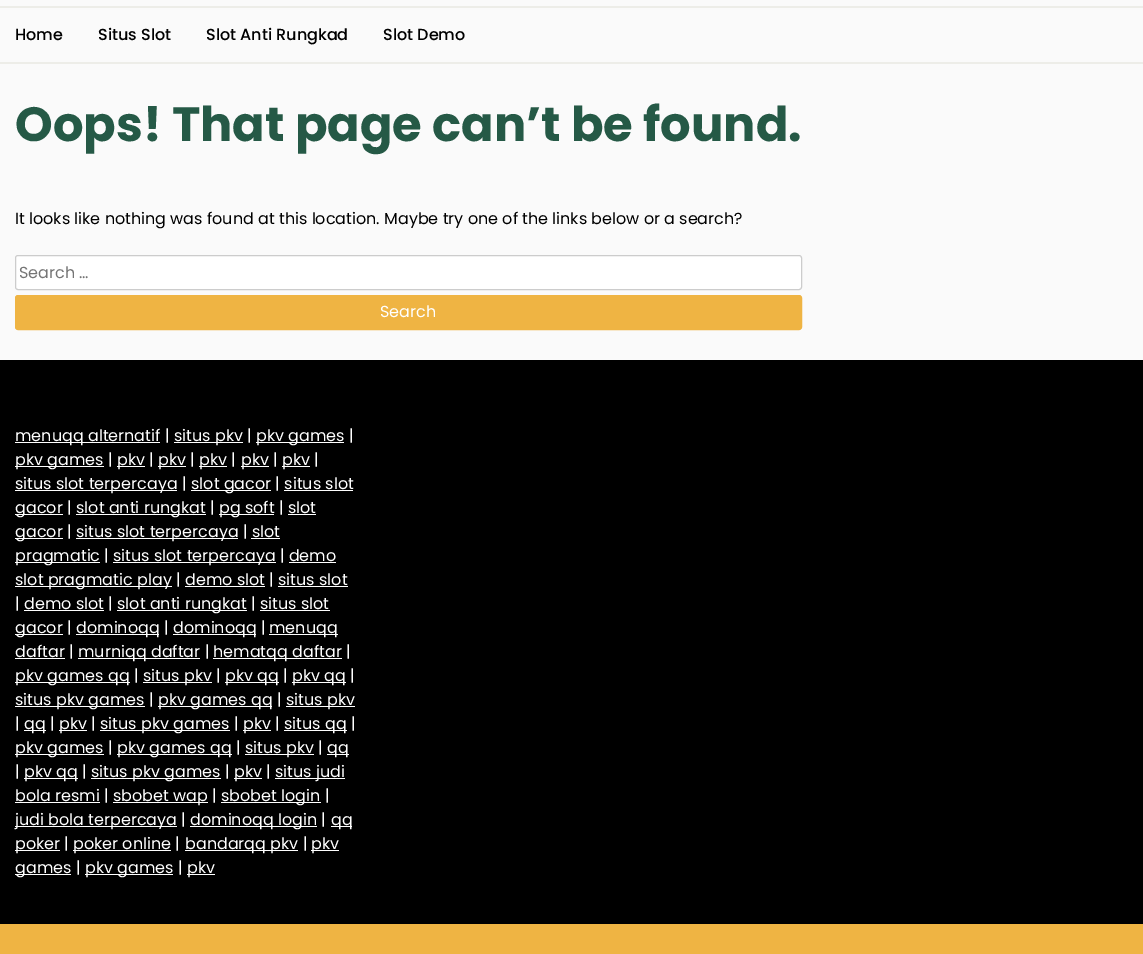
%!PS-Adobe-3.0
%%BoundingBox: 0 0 1143 954
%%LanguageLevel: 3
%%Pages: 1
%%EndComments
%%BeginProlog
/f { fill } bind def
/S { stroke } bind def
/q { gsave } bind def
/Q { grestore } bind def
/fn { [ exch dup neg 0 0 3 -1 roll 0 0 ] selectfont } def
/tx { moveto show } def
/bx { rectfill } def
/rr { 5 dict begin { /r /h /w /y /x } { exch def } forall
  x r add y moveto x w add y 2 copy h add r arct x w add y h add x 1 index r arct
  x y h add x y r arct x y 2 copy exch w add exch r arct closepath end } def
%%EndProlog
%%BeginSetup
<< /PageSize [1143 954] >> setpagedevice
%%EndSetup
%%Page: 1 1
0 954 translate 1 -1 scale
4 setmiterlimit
0.98 setgray
0 0 1143 954 bx
0.929 0.929 0.91 setrgbcolor
0 6 1143 2 bx
0 62 1143 2 bx
/Poppins-Medium 16 fn
0 setgray
(Home) 15 40 tx
(Situs Slot) 98 40 tx
(Slot Anti Rungkad) 206 40 tx
(Slot Demo) 383 40 tx
/Poppins-Bold 48 fn
0.145 0.349 0.275 setrgbcolor
(Oops! That page can’t be found.) 15 141 tx
/Poppins-Regular 16 fn
0 setgray
(It looks like nothing was found at this location. Maybe try one of the links below or a search?) 15 224 tx
1 setgray
15.5 255.5 786 34 2.5 rr q f Q
0.8 setgray
S
0.459 setgray
(Search …) 19 278 tx
0.937 0.706 0.263 setrgbcolor
15.5 295.5 786 34 2.5 rr q f Q
S
1 setgray
(Search) 380 317 tx
0 setgray
0 360 1143 564 bx
1 setgray
15 442 145 1 bx
(menuqq alternatif |) 15 441 tx
174 442 69 1 bx
(situs pkv |) 174 441 tx
256 442 88 1 bx
(pkv games |) 256 441 tx
15 466 89 1 bx
(pkv games |) 15 465 tx
117 466 28 1 bx
(pkv |) 117 465 tx
158 466 28 1 bx
(pkv |) 158 465 tx
199 466 28 1 bx
(pkv |) 199 465 tx
241 466 28 1 bx
(pkv |) 241 465 tx
282 466 28 1 bx
(pkv |) 282 465 tx
15 490 162 1 bx
(situs slot terpercaya |) 15 489 tx
191 490 80 1 bx
(slot gacor | situs slot) 191 489 tx
15 514 48 1 bx
(gacor |) 15 513 tx
284 490 69 1 bx
76 514 130 1 bx
(slot anti rungkat |) 76 513 tx
219 514 55 1 bx
(pg soft | slot) 219 513 tx
15 538 48 1 bx
(gacor |) 15 537 tx
288 514 28 1 bx
76 538 162 1 bx
(situs slot terpercaya | slot) 76 537 tx
15 562 85 1 bx
(pragmatic |) 15 561 tx
251 538 29 1 bx
113 562 163 1 bx
(situs slot terpercaya | demo) 113 561 tx
15 586 157 1 bx
(slot pragmatic play | demo slot | situs slot) 15 585 tx
289 562 47 1 bx
185 586 80 1 bx
278 586 70 1 bx
(| demo slot |) 15 609 tx
117 610 130 1 bx
(slot anti rungkat | situs slot) 117 609 tx
24 610 80 1 bx
15 634 48 1 bx
(gacor |) 15 633 tx
260 610 70 1 bx
76 634 83 1 bx
(dominoqq |) 76 633 tx
173 634 83 1 bx
(dominoqq |) 173 633 tx
269 634 69 1 bx
(menuqq) 269 633 tx
15 658 50 1 bx
(daftar |) 15 657 tx
78 658 122 1 bx
(murniqq daftar |) 78 657 tx
213 658 129 1 bx
(hematqq daftar |) 213 657 tx
15 682 115 1 bx
(pkv games qq |) 15 681 tx
143 682 69 1 bx
(situs pkv |) 143 681 tx
225 682 54 1 bx
(pkv qq |) 225 681 tx
292 682 54 1 bx
(pkv qq |) 292 681 tx
15 706 130 1 bx
(situs pkv games |) 15 705 tx
158 706 114 1 bx
(pkv games qq |) 158 705 tx
286 706 69 1 bx
(situs pkv) 286 705 tx
(|) 15 729 tx
24 730 22 1 bx
(qq |) 24 729 tx
59 730 28 1 bx
(pkv |) 59 729 tx
100 730 130 1 bx
(situs pkv games |) 100 729 tx
243 730 28 1 bx
(pkv |) 243 729 tx
284 730 63 1 bx
(situs qq |) 284 729 tx
15 754 89 1 bx
(pkv games |) 15 753 tx
117 754 115 1 bx
(pkv games qq |) 117 753 tx
245 754 69 1 bx
(situs pkv |) 245 753 tx
327 754 22 1 bx
(qq) 327 753 tx
(|) 15 777 tx
24 778 54 1 bx
(pkv qq |) 24 777 tx
91 778 130 1 bx
(situs pkv games |) 91 777 tx
234 778 28 1 bx
(pkv |) 234 777 tx
275 778 70 1 bx
(situs judi) 275 777 tx
15 802 85 1 bx
(bola resmi |) 15 801 tx
113 802 95 1 bx
(sbobet wap |) 113 801 tx
221 802 100 1 bx
(sbobet login |) 221 801 tx
15 826 162 1 bx
(judi bola terpercaya |) 15 825 tx
190 826 127 1 bx
(dominoqq login |) 190 825 tx
331 826 21 1 bx
(qq) 331 825 tx
15 850 45 1 bx
(poker |) 15 849 tx
73 850 98 1 bx
(poker online |) 73 849 tx
185 850 113 1 bx
(bandarqq pkv |) 185 849 tx
311 850 28 1 bx
(pkv) 311 849 tx
15 874 56 1 bx
(games |) 15 873 tx
85 874 88 1 bx
(pkv games |) 85 873 tx
187 874 28 1 bx
(pkv) 187 873 tx
0.937 0.706 0.263 setrgbcolor
0 924 1143 30 bx
showpage
%%EOF
